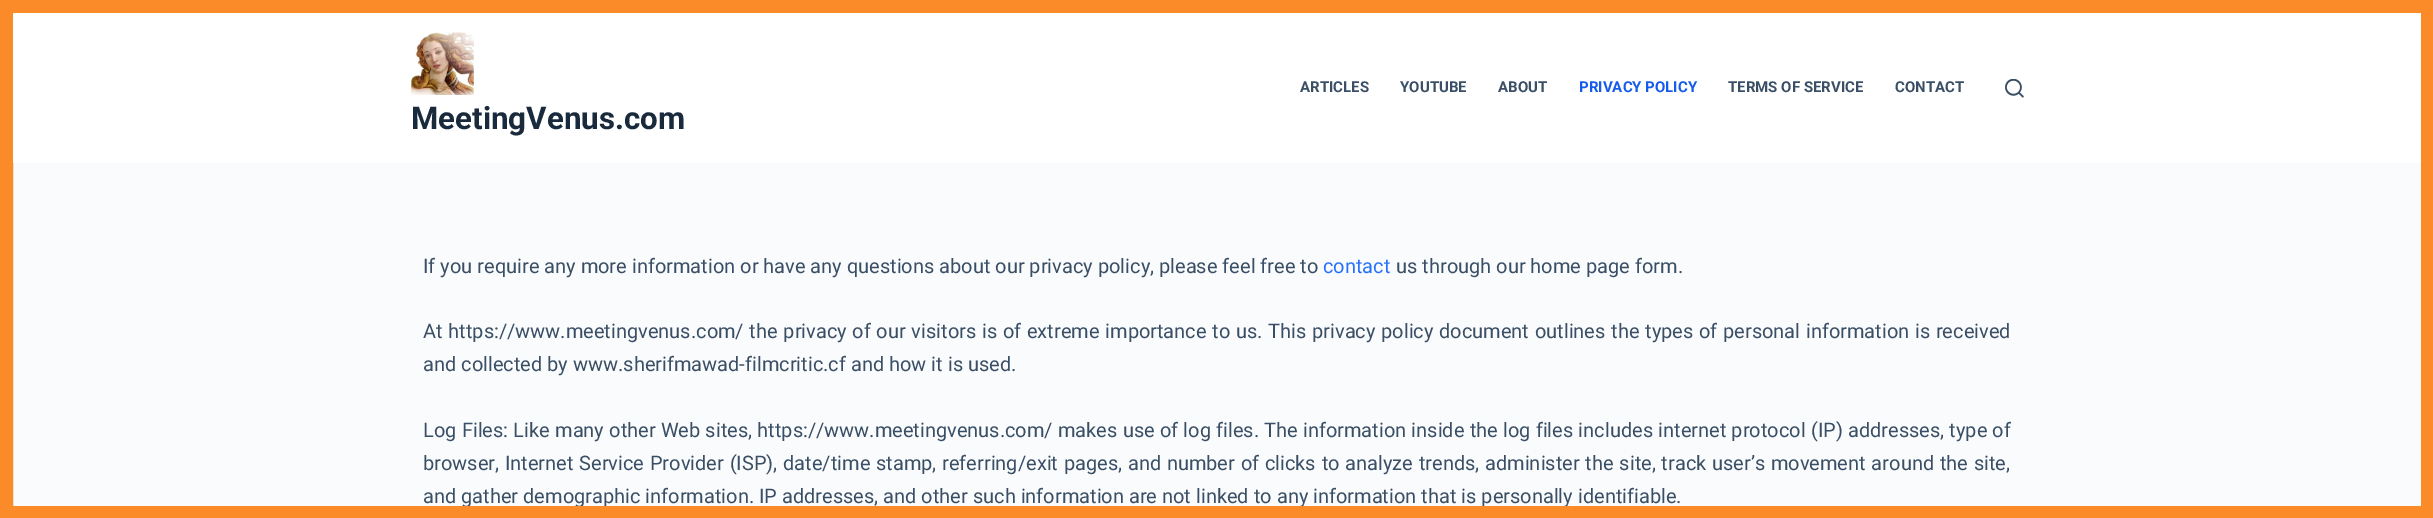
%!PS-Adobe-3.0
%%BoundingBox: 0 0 2433 518
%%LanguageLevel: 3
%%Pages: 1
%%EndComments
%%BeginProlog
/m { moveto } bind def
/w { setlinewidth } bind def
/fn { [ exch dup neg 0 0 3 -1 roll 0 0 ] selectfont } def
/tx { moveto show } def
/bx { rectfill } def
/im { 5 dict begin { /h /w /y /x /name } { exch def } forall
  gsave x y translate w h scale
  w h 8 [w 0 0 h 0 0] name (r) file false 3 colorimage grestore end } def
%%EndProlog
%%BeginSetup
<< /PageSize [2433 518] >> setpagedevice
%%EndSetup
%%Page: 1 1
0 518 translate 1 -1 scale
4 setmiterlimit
0.98 0.984 0.988 setrgbcolor
0 0 2433 518 bx
0.98 0.545 0.157 setrgbcolor
13 w
6.5 6.5 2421 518 rectstroke
1 setgray
13 13 2408 150 bx
/Roboto-Bold 15 fn
0.227 0.31 0.4 setrgbcolor
(ARTICLES) 1300 92 tx
(YOUTUBE) 1400 92 tx
(ABOUT) 1498 92 tx
0.082 0.349 0.929 setrgbcolor
(PRIVACY POLICY) 1579 92 tx
0.227 0.31 0.4 setrgbcolor
(TERMS OF SERVICE) 1728 92 tx
(CONTACT) 1895 92 tx
(image0.raw) 2005 79 19 19 im
(image1.raw) 411 32 63 63 im
/Roboto-Bold 31.25 fn
0.098 0.165 0.239 setrgbcolor
(MeetingVenus.com) 411 129 tx
/Roboto-Regular 20 fn
0.227 0.31 0.4 setrgbcolor
(If you require any more information or have any questions about our privacy policy, please feel free to) 423 273 tx
0.157 0.447 0.98 setrgbcolor
(contact) 1323 273 tx
0.227 0.31 0.4 setrgbcolor
(us through our home page form.) 1396 273 tx
423 338 m 0.75 0 32 (At https://www.meetingvenus.com/ the privacy of our visitors is of extreme importance to us. This privacy policy document outlines the types of personal information is received) widthshow
(and collected by www.sherifmawad-filmcritic.cf and how it is used.) 423 371 tx
423 437 m 0.25 0 32 (Log Files: Like many other Web sites, https://www.meetingvenus.com/ makes use of log files. The information inside the log files includes internet protocol \(IP\) addresses, type of) widthshow
423 470 m 0.8 0 32 (browser, Internet Service Provider \(ISP\), date/time stamp, referring/exit pages, and number of clicks to analyze trends, administer the site, track user’s movement around the site,) widthshow
(and gather demographic information. IP addresses, and other such information are not linked to any information that is personally identifiable.) 423 503 tx
0.98 0.545 0.157 setrgbcolor
13 506 2408 12 bx
showpage
%%EOF
